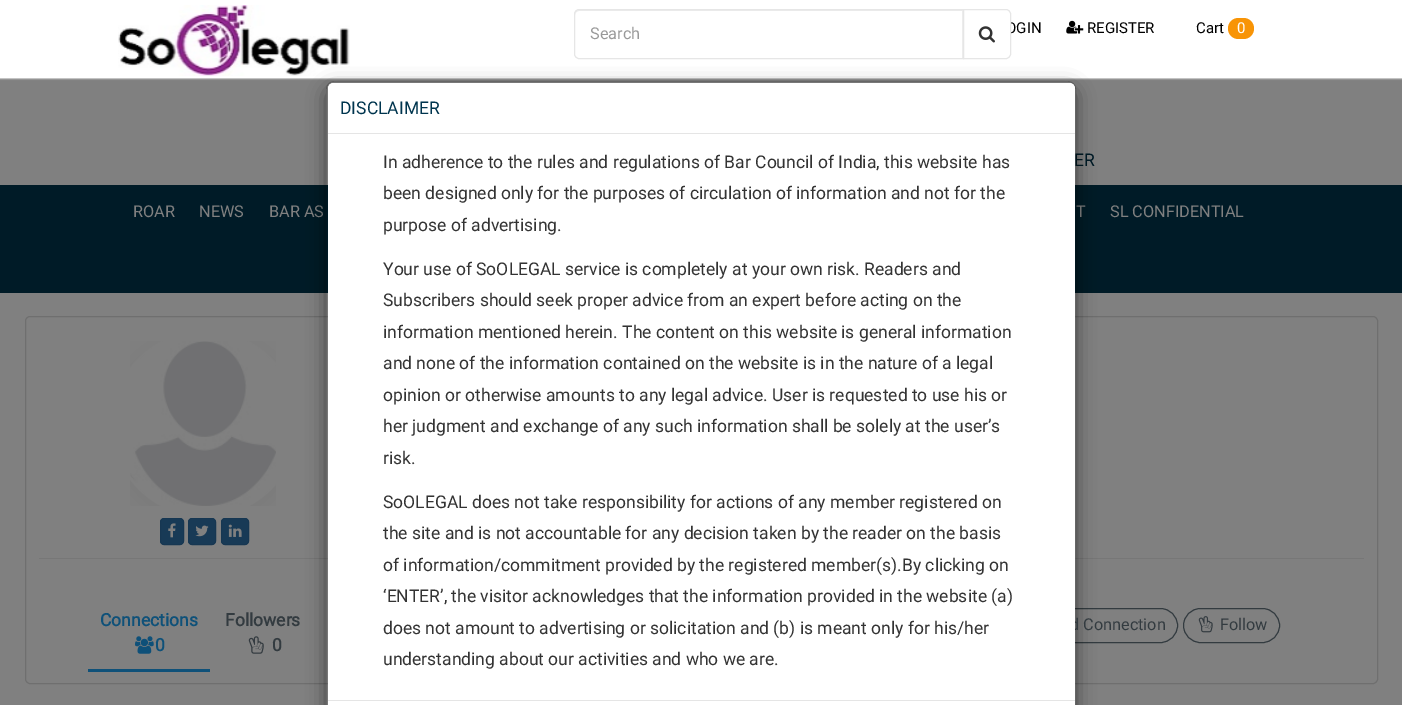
%!PS-Adobe-3.0
%%BoundingBox: 0 0 1402 705
%%LanguageLevel: 3
%%Pages: 1
%%EndComments
%%BeginProlog
/m { moveto } bind def
/l { lineto } bind def
/c { curveto } bind def
/h { closepath } bind def
/f { fill } bind def
/S { stroke } bind def
/q { gsave } bind def
/Q { grestore } bind def
/fn { [ exch dup neg 0 0 3 -1 roll 0 0 ] selectfont } def
/tx { moveto show } def
/bx { rectfill } def
/al { dup .setfillconstantalpha .setstrokeconstantalpha } def
/rr { 5 dict begin { /r /h /w /y /x } { exch def } forall
  x r add y moveto x w add y 2 copy h add r arct x w add y h add x 1 index r arct
  x y h add x y r arct x y 2 copy exch w add exch r arct closepath end } def
/sh { 12 dict begin { /a /b /q /h /w /y /x } { exch def } forall gsave /was 0 def
  9 -2 -9 { dup b mul 4 div /e exch def 1 sub .425 mul 2.718 exch exp 1 add a .99 .min exch div /now exch def
    1 1 now sub 1 was sub div sub al /was now def
    w h .min e 2 mul add 0 gt { x e sub y e sub w e 2 mul add h e 2 mul add
      q e add b .6 mul add w h .min 2 div e add .min 0 .max rr fill } if } for grestore end } def
/im { 5 dict begin { /h /w /y /x /name } { exch def } forall
  gsave x y translate w h scale
  w h 8 [w 0 0 h 0 0] name (r) file false 3 colorimage grestore end } def
%%EndProlog
%%BeginSetup
<< /PageSize [1402 705] /PageUsesTransparency true >> setpagedevice
%%EndSetup
%%Page: 1 1
0 .pushpdf14devicefilter
0 705 translate 1 -1 scale
4 setmiterlimit
0.502 setgray
0 0 1402 705 bx
1 setgray
0 0 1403 78 0 1 1 sh
0 0 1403 78 0 1 1 sh
0 0 1402 78 bx
(image0.raw) 118 5 232 71 im
0.925 setgray
579 11 m 962 11 l 962 58 l 963 58 l 963 10 l 579 10 l 576 10 575 12 575 15 c 575 13 577 11 579 11 c h f
0.902 setgray
579 9.5 m 963.5 9.5 l 963.5 58.5 l 579 58.5 l 576.5 58.5 574.5 56.5 574.5 54 c 574.5 14 l 574.5 11.5 576.5 9.5 579 9.5 c h S
/Roboto-Regular 16.25 fn
0.6 setgray
(Search) 590 39 tx
/Roboto-Regular 15 fn
0 setgray
(OGIN) 1006 33 tx
1 setgray
963.5 9.5 m 1006 9.5 l 1008.5 9.5 1010.5 11.5 1010.5 14 c 1010.5 54 l 1010.5 56.5 1008.5 58.5 1006 58.5 c 963.5 58.5 l h q f Q
0.902 setgray
S
(image1.raw) 978 26 17 17 im
(image2.raw) 1066 20 18 14 im
0 setgray
(REGISTER) 1087 33 tx
(Cart) 1196 33 tx
0.973 0.58 0.024 setrgbcolor
1228 18 26 21 10.5 rr f
1 setgray
(0) 1237 33 tx
/Roboto-Regular 17.5 fn
0 0.106 0.153 setrgbcolor
(ER) 1074 166 tx
0 185 1402 108 bx
/Roboto-Regular 16.25 fn
0.502 setgray
(ROAR) 133 217 tx
(NEWS) 199 217 tx
(BAR AS) 269 217 tx
(T) 1076 217 tx
(SL CONFIDENTIAL) 1110 217 tx
0.435 setgray
25.5 316.5 1352 367 4.5 rr S
0.467 setgray
39 558 1325 1 bx
0.2 0.231 0.251 setrgbcolor
1013.5 608.5 164 34 17 rr S
q
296 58 m 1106 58 l 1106 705 l 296 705 l h 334 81 m 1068 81 l 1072.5 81 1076 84.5 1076 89 c 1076 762 l 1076 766.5 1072.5 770 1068 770 c 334 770 l 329.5 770 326 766.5 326 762 c 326 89 l 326 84.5 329.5 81 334 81 c h eoclip newpath
0 setgray
326 88 750 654 8 9.5 0.5 sh
Q
(d Connection) 1070 630 tx
1 setgray
334 83 m 1069 83 l 1072.5 83 1075 85.5 1075 89 c 1075 705 l 328 705 l 328 89 l 328 85.5 330.5 83 334 83 c h f
0.2 al
0 setgray
326.5 81.5 749 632 7.5 rr S
1 al
1 setgray
334 83 m 1069 83 l 1072.5 83 1075 85.5 1075 89 c 1075 134 l 328 134 l 328 89 l 328 85.5 330.5 83 334 83 c h f
0.898 setgray
328 133 747 1 bx
/Roboto-Regular 17.5 fn
0 0.208 0.306 setrgbcolor
(DISCLAIMER) 340 114 tx
0.2 setgray
(In adherence to the rules and regulations of Bar Council of India, this website has) 383 168 tx
(been designed only for the purposes of circulation of information and not for the) 383 199 tx
(purpose of advertising.) 383 231 tx
(Your use of SoOLEGAL service is completely at your own risk. Readers and) 383 275 tx
(Subscribers should seek proper advice from an expert before acting on the) 383 306 tx
(information mentioned herein. The content on this website is general information) 383 338 tx
(and none of the information contained on the website is in the nature of a legal) 383 369 tx
(opinion or otherwise amounts to any legal advice. User is requested to use his or) 383 401 tx
(her judgment and exchange of any such information shall be solely at the user’s) 383 432 tx
(risk.) 383 464 tx
(SoOLEGAL does not take responsibility for actions of any member registered on) 383 508 tx
(the site and is not accountable for any decision taken by the reader on the basis) 383 539 tx
(of information/commitment provided by the registered member\(s\).By clicking on) 383 571 tx
(‘ENTER’, the visitor acknowledges that the information provided in the website \(a\)) 383 602 tx
(does not amount to advertising or solicitation and \(b\) is meant only for his/her) 383 634 tx
(understanding about our activities and who we are.) 383 665 tx
0.898 setgray
328 700 747 1 bx
(image3.raw) 130 341 146 165 im
0.094 0.227 0.337 setrgbcolor
160.5 518.5 23 26 3.5 rr q f Q
0.09 0.216 0.322 setrgbcolor
S
(image4.raw) 168 523 8 15 im
0.094 0.227 0.337 setrgbcolor
188.5 518.5 27 26 3.5 rr q f Q
0.09 0.216 0.322 setrgbcolor
S
(image5.raw) 195 525 14 12 im
0.094 0.227 0.337 setrgbcolor
221.5 518.5 27 26 3.5 rr q f Q
0.09 0.216 0.322 setrgbcolor
S
(image6.raw) 228 524 14 13 im
/Roboto-Bold 17.5 fn
0.059 0.318 0.475 setrgbcolor
(Connections) 100 626 tx
(image7.raw) 135 636 19 18 im
(0) 155 651 tx
88 669 122 3 bx
0.2 0.231 0.251 setrgbcolor
(Followers) 225 626 tx
(image8.raw) 248 636 16 18 im
(0) 272 651 tx
1183.5 608.5 96 34 17 rr S
(image9.raw) 1198 616 15 17 im
/Roboto-Regular 16.25 fn
(Follow) 1220 630 tx
.poppdf14devicefilter showpage
%%EOF
